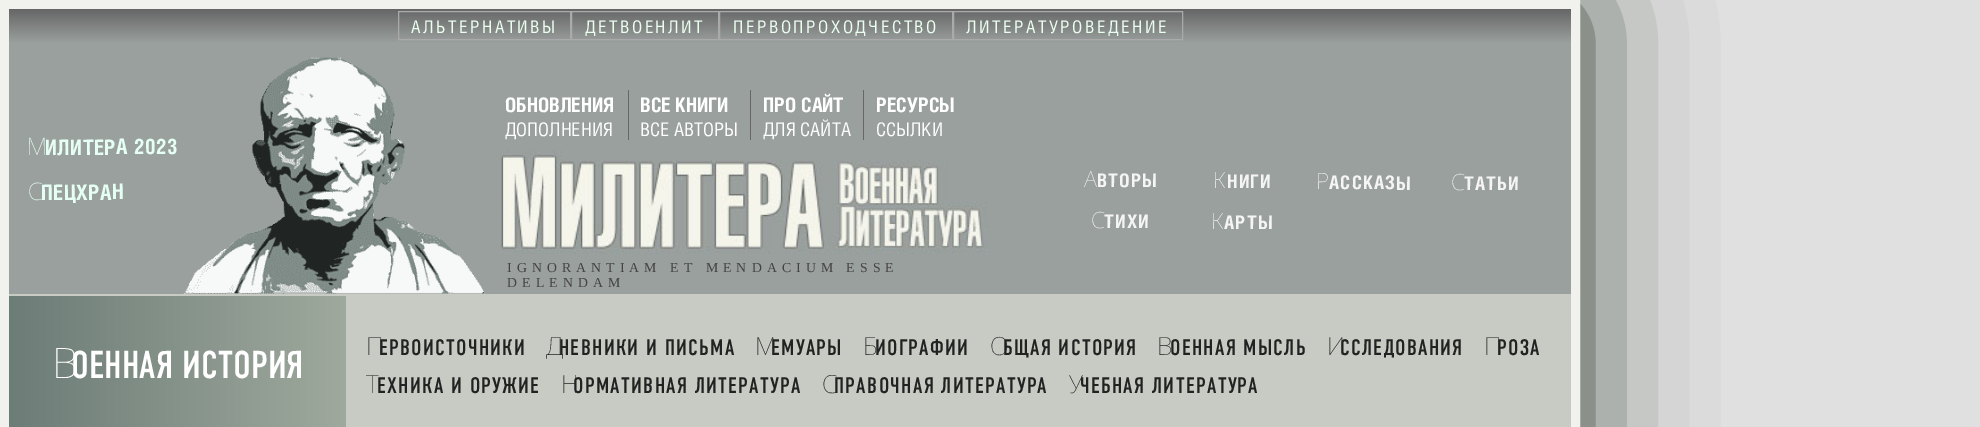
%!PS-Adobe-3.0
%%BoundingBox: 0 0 1980 427
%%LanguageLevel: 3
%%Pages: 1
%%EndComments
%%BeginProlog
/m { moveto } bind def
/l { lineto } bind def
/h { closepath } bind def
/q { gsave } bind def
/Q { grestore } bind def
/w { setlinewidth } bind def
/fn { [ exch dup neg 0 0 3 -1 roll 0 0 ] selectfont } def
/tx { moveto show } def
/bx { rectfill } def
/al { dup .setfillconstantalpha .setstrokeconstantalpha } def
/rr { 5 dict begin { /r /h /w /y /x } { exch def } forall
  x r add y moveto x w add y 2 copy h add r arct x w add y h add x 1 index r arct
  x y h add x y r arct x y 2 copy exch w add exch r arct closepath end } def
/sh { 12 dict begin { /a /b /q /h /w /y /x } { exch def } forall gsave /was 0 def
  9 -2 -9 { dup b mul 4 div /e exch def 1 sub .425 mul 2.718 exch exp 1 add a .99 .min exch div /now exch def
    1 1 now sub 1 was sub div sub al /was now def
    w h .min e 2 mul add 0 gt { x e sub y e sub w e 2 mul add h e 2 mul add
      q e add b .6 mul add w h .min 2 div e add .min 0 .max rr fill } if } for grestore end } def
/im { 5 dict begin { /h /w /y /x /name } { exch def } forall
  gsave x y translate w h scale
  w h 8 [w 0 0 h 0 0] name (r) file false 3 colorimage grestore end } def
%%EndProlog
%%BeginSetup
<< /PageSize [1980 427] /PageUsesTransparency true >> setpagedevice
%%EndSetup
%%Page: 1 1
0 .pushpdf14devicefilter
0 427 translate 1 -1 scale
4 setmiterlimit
0.878 setgray
0 0 1980 427 bx
0.2 0.243 0.196 setrgbcolor
0 0 1580 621 6 62.5 1 sh
0.945 0.945 0.933 setrgbcolor
9 w
4.5 4.5 1571 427 rectstroke
q 9 9 m 1571 9 l 1571 43 l 9 43 l h clip newpath
<< /ShadingType 2 /ColorSpace /DeviceRGB /Coords [790 43 790 9] /Extend [true true] /Function << /FunctionType 2 /Domain [0 1] /C0 [0.604 0.627 0.62] /C1 [0.4 0.4 0.4] /N 1 >> >> shfill Q
0.667 setgray
1 w
398.5 11.5 172 28 rectstroke
/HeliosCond-Regular 17.5 fn
0.922 1 0.937 setrgbcolor
411 33 m 2.5 0 (АЛЬТЕРНАТИВЫ) ashow
0.667 setgray
571.5 11.5 147 28 rectstroke
0.922 1 0.937 setrgbcolor
585 33 m 2.5 0 (ДЕТВОЕНЛИТ) ashow
0.667 setgray
719.5 11.5 233 28 rectstroke
0.922 1 0.937 setrgbcolor
733 33 m 2.5 0 (ПЕРВОПРОХОДЧЕСТВО) ashow
0.667 setgray
953.5 11.5 229 28 rectstroke
0.922 1 0.937 setrgbcolor
966 33 m 2.5 0 (ЛИТЕРАТУРОВЕДЕНИЕ) ashow
0.604 0.627 0.62 setrgbcolor
9 43 1562 251 bx
/NotoSans-Thin 24 fn
0.902 1 0.961 setrgbcolor
q 27 155 translate -0.5 rotate 0 0 m 0.4 0 (М) ashow Q
/HeliosCond-Bold 21.25 fn
q 45 155 translate -0.5 rotate 0 0 m 0.4 0 (ИЛИТЕРА 2023) ashow Q
/NotoSans-Thin 24 fn
q 28 200 translate -0.5 rotate 0 0 m 0.4 0 (С) ashow Q
/HeliosCond-Bold 21.25 fn
q 41 200 translate -0.5 rotate 0 0 m 0.4 0 (ПЕЦХРАН) ashow Q
(image0.raw) 183 57 302 237 im
0.4 setgray
628 90 1 50 bx
/HeliosCond-Bold 20 fn
1 setgray
(ОБНОВЛЕНИЯ) 505 112 tx
/HeliosCond-Regular 18.75 fn
(ДОПОЛНЕНИЯ) 505 136 tx
0.4 setgray
750 90 1 50 bx
/HeliosCond-Bold 20 fn
1 setgray
(ВСЕ КНИГИ) 640 112 tx
/HeliosCond-Regular 18.75 fn
(ВСЕ АВТОРЫ) 640 136 tx
0.4 setgray
863 90 1 50 bx
/HeliosCond-Bold 20 fn
1 setgray
(ПРО САЙТ) 763 112 tx
/HeliosCond-Regular 18.75 fn
(ДЛЯ САЙТА) 763 136 tx
/HeliosCond-Bold 20 fn
(РЕСУРСЫ) 876 112 tx
/HeliosCond-Regular 18.75 fn
(ССЫЛКИ) 876 136 tx
(image1.raw) 500 150 488 104 im
/LiberationSerif-Regular 13.75 fn
0.267 setgray
507 272 m 5.1 0 (IGNORANTIAM ET MENDACIUM ESSE) ashow
507 287 m 5.1 0 (DELENDAM) ashow
/NotoSans-Thin 22.5 fn
0.961 setgray
q 1084 187 translate 0.5 rotate 0 0 m 1.25 0 (А) ashow Q
/HeliosCond-Bold 18.75 fn
q 1097 187 translate 0.5 rotate 0 0 m 1.25 0 (ВТОРЫ) ashow Q
/NotoSans-Thin 22.5 fn
q 1213 188 translate 0.5 rotate 0 0 m 1.25 0 (К) ashow Q
/HeliosCond-Bold 18.75 fn
q 1227 188 translate 0.5 rotate 0 0 m 1.25 0 (НИГИ) ashow Q
/NotoSans-Thin 22.5 fn
q 1316 189 translate 0.5 rotate 0 0 m 1.25 0 (Р) ashow Q
/HeliosCond-Bold 18.75 fn
q 1329 189 translate 0.5 rotate 0 0 m 1.25 0 (АССКАЗЫ) ashow Q
/NotoSans-Thin 22.5 fn
q 1451 190 translate 0.5 rotate 0 0 m 1.25 0 (С) ashow Q
/HeliosCond-Bold 18.75 fn
q 1464 190 translate 0.5 rotate 0 0 m 1.25 0 (ТАТЬИ) ashow Q
/NotoSans-Thin 22.5 fn
q 1091 228 translate 0.5 rotate 0 0 m 1.25 0 (С) ashow Q
/HeliosCond-Bold 18.75 fn
q 1104 228 translate 0.5 rotate 0 0 m 1.25 0 (ТИХИ) ashow Q
/NotoSans-Thin 22.5 fn
q 1211 229 translate 0.5 rotate 0 0 m 1.25 0 (К) ashow Q
/HeliosCond-Bold 18.75 fn
q 1224 229 translate 0.5 rotate 0 0 m 1.25 0 (АРТЫ) ashow Q
0.78 0.796 0.765 setrgbcolor
9 294 1562 133 bx
q 9 296 m 346 296 l 346 427 l 9 427 l h clip newpath
<< /ShadingType 2 /ColorSpace /DeviceRGB /Coords [9 362 346 362] /Extend [true true] /Function << /FunctionType 2 /Domain [0 1] /C0 [0.424 0.486 0.467] /C1 [0.624 0.663 0.616] /N 1 >> >> shfill Q
/NotoSans-Thin 42 fn
1 setgray
(В) 52 378 tx
/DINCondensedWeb-Regular 38.75 fn
(ОЕННАЯ ИСТОРИЯ) 71 378 tx
/NotoSans-Thin 25 fn
0.133 setgray
366 355 m 1.25 0 (П) ashow
/DINCondensedWeb-Regular 22.5 fn
379 355 m 1.25 0 (ЕРВОИСТОЧНИКИ) ashow
/NotoSans-Thin 25 fn
546 355 m 1.25 0 (Д) ashow
/DINCondensedWeb-Regular 22.5 fn
559 355 m 1.25 0 (НЕВНИКИ И ПИСЬМА) ashow
/NotoSans-Thin 25 fn
755 355 m 1.25 0 (М) ashow
/DINCondensedWeb-Regular 22.5 fn
771 355 m 1.25 0 (ЕМУАРЫ) ashow
/NotoSans-Thin 25 fn
863 355 m 1.25 0 (Б) ashow
/DINCondensedWeb-Regular 22.5 fn
875 355 m 1.25 0 (ИОГРАФИИ) ashow
/NotoSans-Thin 25 fn
990 355 m 1.25 0 (О) ashow
/DINCondensedWeb-Regular 22.5 fn
1003 355 m 1.25 0 (БЩАЯ ИСТОРИЯ) ashow
/NotoSans-Thin 25 fn
1157 355 m 1.25 0 (В) ashow
/DINCondensedWeb-Regular 22.5 fn
1170 355 m 1.25 0 (ОЕННАЯ МЫСЛЬ) ashow
/NotoSans-Thin 25 fn
1327 355 m 1.25 0 (И) ashow
/DINCondensedWeb-Regular 22.5 fn
1340 355 m 1.25 0 (ССЛЕДОВАНИЯ) ashow
/NotoSans-Thin 25 fn
1484 355 m 1.25 0 (П) ashow
/DINCondensedWeb-Regular 22.5 fn
1497 355 m 1.25 0 (РОЗА) ashow
/NotoSans-Thin 25 fn
366 393 m 1.25 0 (Т) ashow
/DINCondensedWeb-Regular 22.5 fn
377 393 m 1.25 0 (ЕХНИКА И ОРУЖИЕ) ashow
/NotoSans-Thin 25 fn
561 393 m 1.25 0 (Н) ashow
/DINCondensedWeb-Regular 22.5 fn
573 393 m 1.25 0 (ОРМАТИВНАЯ ЛИТЕРАТУРА) ashow
/NotoSans-Thin 25 fn
822 393 m 1.25 0 (С) ashow
/DINCondensedWeb-Regular 22.5 fn
834 393 m 1.25 0 (ПРАВОЧНАЯ ЛИТЕРАТУРА) ashow
/NotoSans-Thin 25 fn
1069 393 m 1.25 0 (У) ashow
/DINCondensedWeb-Regular 22.5 fn
1080 393 m 1.25 0 (ЧЕБНАЯ ЛИТЕРАТУРА) ashow
.poppdf14devicefilter showpage
%%EOF
